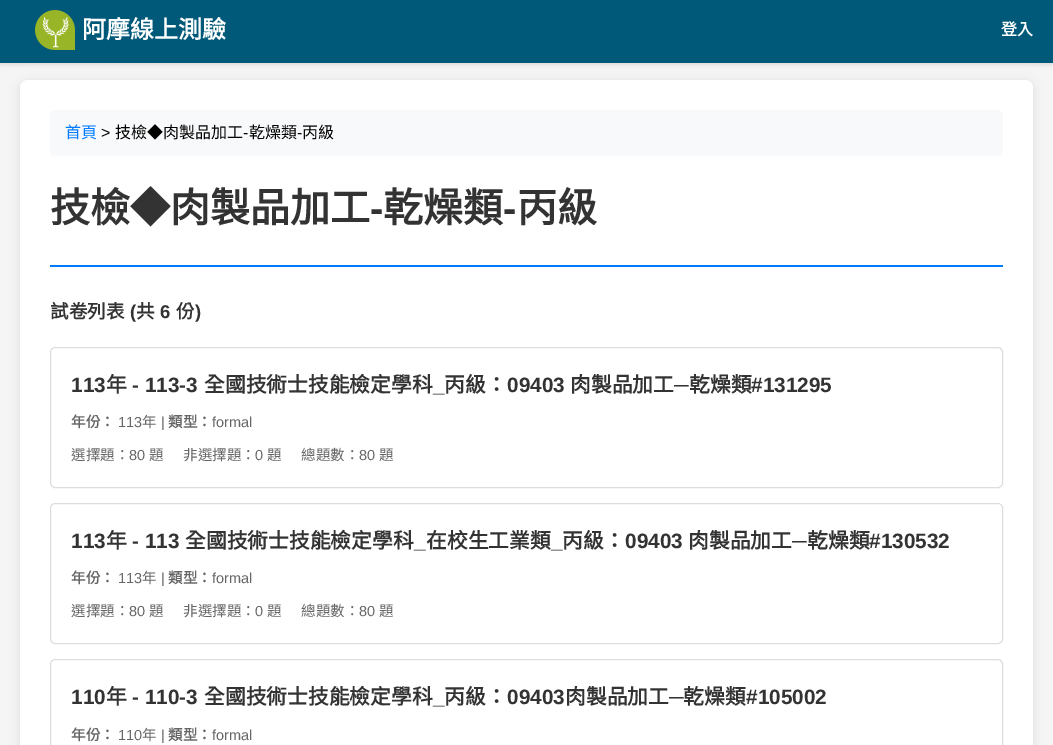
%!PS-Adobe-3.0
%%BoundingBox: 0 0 1053 745
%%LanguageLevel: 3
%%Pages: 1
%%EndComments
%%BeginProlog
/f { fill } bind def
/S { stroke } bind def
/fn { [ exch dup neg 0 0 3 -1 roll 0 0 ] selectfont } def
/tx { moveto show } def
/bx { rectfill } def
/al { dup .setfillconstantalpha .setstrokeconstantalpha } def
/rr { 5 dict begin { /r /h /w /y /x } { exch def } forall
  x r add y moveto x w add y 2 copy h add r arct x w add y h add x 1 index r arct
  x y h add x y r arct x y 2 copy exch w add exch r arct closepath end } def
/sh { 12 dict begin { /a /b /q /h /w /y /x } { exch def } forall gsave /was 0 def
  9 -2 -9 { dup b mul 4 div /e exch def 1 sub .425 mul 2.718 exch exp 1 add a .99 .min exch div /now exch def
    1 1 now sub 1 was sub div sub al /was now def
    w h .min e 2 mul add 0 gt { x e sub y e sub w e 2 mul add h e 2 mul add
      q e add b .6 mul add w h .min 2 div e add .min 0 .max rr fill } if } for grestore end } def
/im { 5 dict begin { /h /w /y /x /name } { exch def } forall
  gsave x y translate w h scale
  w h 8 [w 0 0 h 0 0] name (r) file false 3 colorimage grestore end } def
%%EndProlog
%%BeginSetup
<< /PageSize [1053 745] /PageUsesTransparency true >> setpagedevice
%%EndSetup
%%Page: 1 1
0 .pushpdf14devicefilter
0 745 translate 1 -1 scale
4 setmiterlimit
0.961 setgray
0 0 1053 745 bx
0 setgray
0 2 1053 63 0 2 0.1 sh
0 0.349 0.475 setrgbcolor
0 0 1053 63 bx
(image0.raw) 35 10 40 40 im
/NotoSansCJKTC-Bold 24 fn
1 setgray
(阿摩線上測驗) 82 38 tx
/NotoSansCJKTC-Bold 16 fn
(登入) 1001 35 tx
0 setgray
20 82 1013 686 8 5 0.1 sh
1 setgray
20 80 1013 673 8 rr f
0.973 0.976 0.98 setrgbcolor
50 110 953 46 5 rr f
/NotoSansCJKTC-Regular 16 fn
0 0.482 1 setrgbcolor
(首頁) 65 138 tx
/LiberationSans-Regular 16 fn
0 setgray
(>) 101 138 tx
/NotoSansCJKTC-Regular 16 fn
(技檢◆肉製品加工) 115 138 tx
/LiberationSans-Regular 16 fn
(-) 243 138 tx
/NotoSansCJKTC-Regular 16 fn
(乾燥類) 249 138 tx
/LiberationSans-Regular 16 fn
(-) 297 138 tx
/NotoSansCJKTC-Regular 16 fn
(丙級) 302 138 tx
0 0.482 1 setrgbcolor
50 265 953 2 bx
/NotoSansCJKTC-Bold 40 fn
0.2 setgray
(技檢◆肉製品加工) 50 222 tx
/LiberationSans-Bold 40 fn
(-) 370 222 tx
/NotoSansCJKTC-Bold 40 fn
(乾燥類) 383 222 tx
/LiberationSans-Bold 40 fn
(-) 503 222 tx
/NotoSansCJKTC-Bold 40 fn
(丙級) 517 222 tx
/NotoSansCJKTC-Bold 18.5 fn
(試卷列表) 50 318 tx
/LiberationSans-Bold 18.5 fn
(\() 130 318 tx
/NotoSansCJKTC-Bold 18.5 fn
(共) 136 318 tx
/LiberationSans-Bold 18.5 fn
(6) 160 318 tx
/NotoSansCJKTC-Bold 18.5 fn
(份) 176 318 tx
/LiberationSans-Bold 18.5 fn
(\)) 195 318 tx
0.867 setgray
50.5 347.5 952 140 4.5 rr S
/LiberationSans-Bold 20.75 fn
0.2 setgray
(113) 71 392 tx
/NotoSansCJKTC-Bold 20.75 fn
(年) 106 392 tx
/LiberationSans-Bold 20.75 fn
(- 113-3) 132 392 tx
/NotoSansCJKTC-Bold 20.75 fn
(全國技術士技能檢定學科) 204 392 tx
(丙級：) 444 392 tx
/LiberationSans-Bold 20.75 fn
(09403) 507 392 tx
/NotoSansCJKTC-Bold 20.75 fn
(肉製品加工) 570 392 tx
/LiberationSans-Bold 20.75 fn
(─) 674 392 tx
/NotoSansCJKTC-Bold 20.75 fn
(乾燥類) 689 392 tx
/LiberationSans-Bold 20.75 fn
(#131295) 751 392 tx
(_) 433 392 tx
/NotoSansCJKTC-Bold 14.5 fn
0.4 setgray
(年份：) 71 427 tx
/LiberationSans-Regular 14.5 fn
(113) 118 427 tx
/NotoSansCJKTC-Regular 14.5 fn
(年) 142 427 tx
/LiberationSans-Regular 14.5 fn
(|) 161 427 tx
/NotoSansCJKTC-Bold 14.5 fn
(類型：) 168 427 tx
/LiberationSans-Regular 14.5 fn
(formal) 212 427 tx
/NotoSansCJKTC-Regular 14.5 fn
(選擇題：) 71 460 tx
/LiberationSans-Regular 14.5 fn
(80) 129 460 tx
/NotoSansCJKTC-Regular 14.5 fn
(題) 149 460 tx
(非選擇題：) 183 460 tx
/LiberationSans-Regular 14.5 fn
(0) 255 460 tx
/NotoSansCJKTC-Regular 14.5 fn
(題) 267 460 tx
(總題數：) 301 460 tx
/LiberationSans-Regular 14.5 fn
(80) 359 460 tx
/NotoSansCJKTC-Regular 14.5 fn
(題) 379 460 tx
0.867 setgray
50.5 503.5 952 140 4.5 rr S
/LiberationSans-Bold 20.75 fn
0.2 setgray
(113) 71 548 tx
/NotoSansCJKTC-Bold 20.75 fn
(年) 106 548 tx
/LiberationSans-Bold 20.75 fn
(- 113) 132 548 tx
/NotoSansCJKTC-Bold 20.75 fn
(全國技術士技能檢定學科) 185 548 tx
/LiberationSans-Bold 20.75 fn
(_) 414 548 tx
/NotoSansCJKTC-Bold 20.75 fn
(在校生工業類) 426 548 tx
(丙級：) 562 548 tx
/LiberationSans-Bold 20.75 fn
(09403) 625 548 tx
/NotoSansCJKTC-Bold 20.75 fn
(肉製品加工) 688 548 tx
/LiberationSans-Bold 20.75 fn
(─) 792 548 tx
/NotoSansCJKTC-Bold 20.75 fn
(乾燥類) 807 548 tx
/LiberationSans-Bold 20.75 fn
(#130532) 869 548 tx
(_) 551 548 tx
/NotoSansCJKTC-Bold 14.5 fn
0.4 setgray
(年份：) 71 583 tx
/LiberationSans-Regular 14.5 fn
(113) 118 583 tx
/NotoSansCJKTC-Regular 14.5 fn
(年) 142 583 tx
/LiberationSans-Regular 14.5 fn
(|) 161 583 tx
/NotoSansCJKTC-Bold 14.5 fn
(類型：) 168 583 tx
/LiberationSans-Regular 14.5 fn
(formal) 212 583 tx
/NotoSansCJKTC-Regular 14.5 fn
(選擇題：) 71 616 tx
/LiberationSans-Regular 14.5 fn
(80) 129 616 tx
/NotoSansCJKTC-Regular 14.5 fn
(題) 149 616 tx
(非選擇題：) 183 616 tx
/LiberationSans-Regular 14.5 fn
(0) 255 616 tx
/NotoSansCJKTC-Regular 14.5 fn
(題) 267 616 tx
(總題數：) 301 616 tx
/LiberationSans-Regular 14.5 fn
(80) 359 616 tx
/NotoSansCJKTC-Regular 14.5 fn
(題) 379 616 tx
0.867 setgray
50.5 659.5 952 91 4.5 rr S
/LiberationSans-Bold 20.75 fn
0.2 setgray
(110) 71 704 tx
/NotoSansCJKTC-Bold 20.75 fn
(年) 106 704 tx
/LiberationSans-Bold 20.75 fn
(- 110-3) 132 704 tx
/NotoSansCJKTC-Bold 20.75 fn
(全國技術士技能檢定學科) 204 704 tx
(丙級：) 444 704 tx
/LiberationSans-Bold 20.75 fn
(09403) 507 704 tx
/NotoSansCJKTC-Bold 20.75 fn
(肉製品加工) 565 704 tx
/LiberationSans-Bold 20.75 fn
(─) 669 704 tx
/NotoSansCJKTC-Bold 20.75 fn
(乾燥類) 683 704 tx
/LiberationSans-Bold 20.75 fn
(#105002) 746 704 tx
(_) 433 704 tx
/NotoSansCJKTC-Bold 14.5 fn
0.4 setgray
(年份：) 71 740 tx
/LiberationSans-Regular 14.5 fn
(110) 118 740 tx
/NotoSansCJKTC-Regular 14.5 fn
(年) 142 740 tx
/LiberationSans-Regular 14.5 fn
(|) 161 740 tx
/NotoSansCJKTC-Bold 14.5 fn
(類型：) 168 740 tx
/LiberationSans-Regular 14.5 fn
(formal) 212 740 tx
.poppdf14devicefilter showpage
%%EOF
